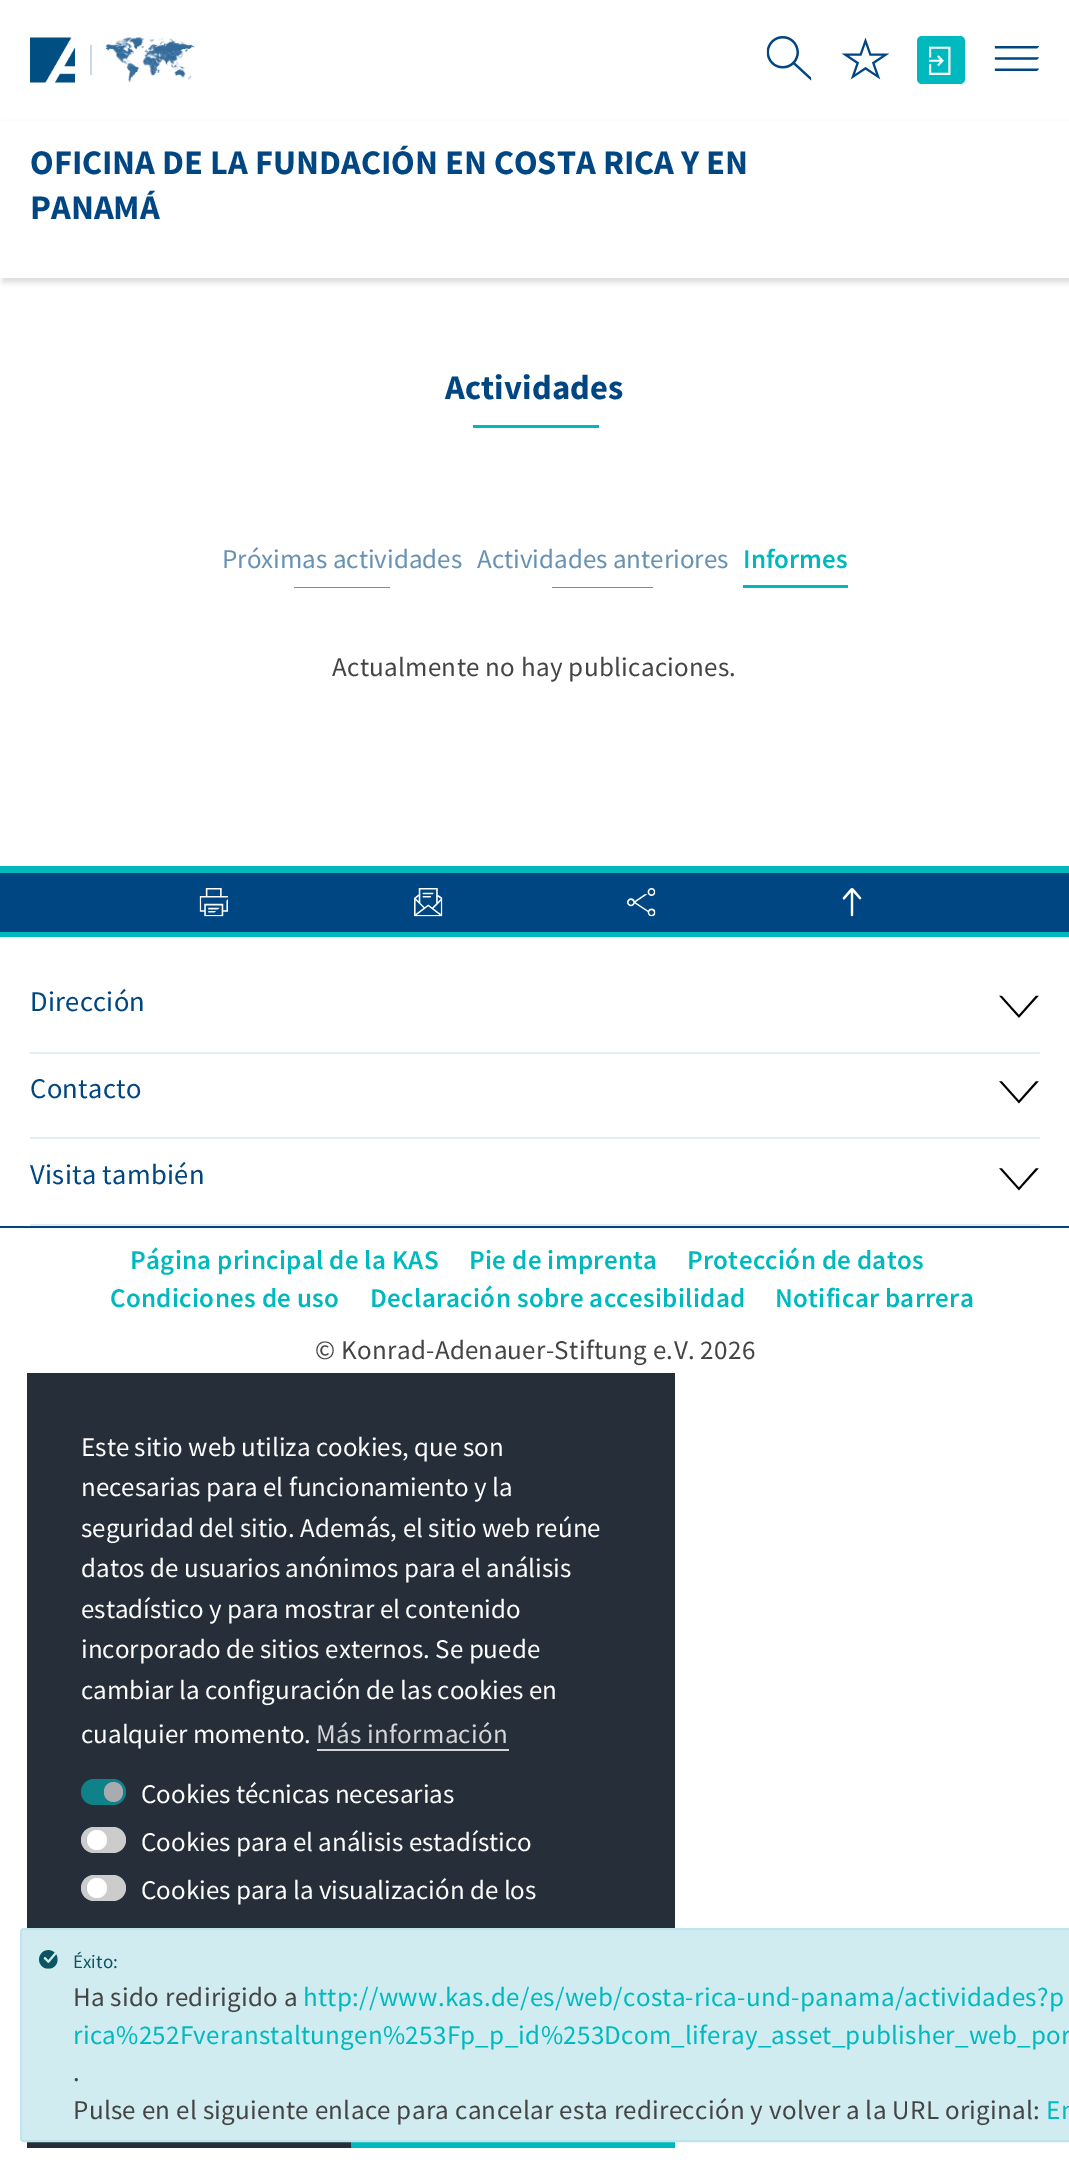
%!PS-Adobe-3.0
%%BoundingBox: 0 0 1069 2174
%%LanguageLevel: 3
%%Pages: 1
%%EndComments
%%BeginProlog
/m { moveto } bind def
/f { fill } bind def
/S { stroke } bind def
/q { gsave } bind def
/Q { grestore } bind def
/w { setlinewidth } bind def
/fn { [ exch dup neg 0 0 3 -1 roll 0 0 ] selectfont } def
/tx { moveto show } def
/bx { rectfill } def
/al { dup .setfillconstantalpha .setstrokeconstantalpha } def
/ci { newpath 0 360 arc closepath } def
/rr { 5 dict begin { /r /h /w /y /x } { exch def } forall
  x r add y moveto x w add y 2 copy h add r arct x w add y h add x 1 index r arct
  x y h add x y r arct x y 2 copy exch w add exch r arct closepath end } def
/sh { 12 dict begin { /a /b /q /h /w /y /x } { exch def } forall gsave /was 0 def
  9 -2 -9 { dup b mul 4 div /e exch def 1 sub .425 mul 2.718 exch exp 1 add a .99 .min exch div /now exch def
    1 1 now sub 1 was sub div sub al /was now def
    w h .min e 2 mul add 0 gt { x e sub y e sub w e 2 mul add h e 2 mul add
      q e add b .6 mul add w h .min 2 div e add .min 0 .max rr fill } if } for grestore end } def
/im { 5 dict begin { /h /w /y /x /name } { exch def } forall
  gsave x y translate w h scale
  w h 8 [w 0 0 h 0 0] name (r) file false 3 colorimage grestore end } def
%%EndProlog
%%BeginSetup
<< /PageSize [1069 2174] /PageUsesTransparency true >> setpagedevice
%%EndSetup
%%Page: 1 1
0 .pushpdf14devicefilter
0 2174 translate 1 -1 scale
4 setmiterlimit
1 setgray
0 0 1069 2174 bx
(image0.raw) 30 37 45 46 im
0.8 0.855 0.902 setrgbcolor
90 45 2 30 bx
(image1.raw) 105 37 90 46 im
(image2.raw) 766 36 46 45 im
(image3.raw) 842 37 47 43 im
0 0.725 0.745 setrgbcolor
917 36 48 48 5 rr f
(image4.raw) 929 46 22 29 im
(image5.raw) 994 46 46 25 im
0 setgray
3 125 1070 157 0 3 0.15 sh
1 setgray
0 121 1069 157 bx
/SourceSansPro-Bold 34.5 fn
0 0.275 0.51 setrgbcolor
(OFICINA DE LA FUNDACIÓN EN COSTA RICA Y EN) 30 174 tx
(PANAMÁ) 30 219 tx
445 399 m 0.1 0 (Actividades) ashow
0 0.725 0.745 setrgbcolor
473 425 126 3 bx
/SourceSansPro-Regular 27 fn
0.4 0.565 0.706 setrgbcolor
(Próximas actividades) 222 568 tx
294 587 96 1 bx
(Actividades anteriores) 477 568 tx
552 587 101 1 bx
0 0.725 0.745 setrgbcolor
743 585 105 3 bx
/SourceSansPro-SemiBold 27 fn
(Informes) 743 568 tx
/SourceSansPro-Regular 27 fn
0.267 setgray
332 676 m 0.3 0 (Actualmente no hay publicaciones.) ashow
0 0.725 0.745 setrgbcolor
0 866 1069 7 bx
0 0.275 0.51 setrgbcolor
0 873 1069 59 bx
0 0.725 0.745 setrgbcolor
0 932 1069 5 bx
(image6.raw) 199 888 29 29 im
(image7.raw) 414 888 29 29 im
(image8.raw) 627 888 29 29 im
(image9.raw) 842 888 20 29 im
0.898 0.925 0.949 setrgbcolor
30 1052 1010 2 bx
/SourceSansPro-Regular 28.5 fn
0 0.275 0.51 setrgbcolor
30 1011 m 0.3 0 (Dirección) ashow
(image10.raw) 999 995 40 23 im
0.898 0.925 0.949 setrgbcolor
30 1137 1010 2 bx
0 0.275 0.51 setrgbcolor
30 1098 m 0.3 0 (Contacto) ashow
(image11.raw) 999 1081 40 23 im
0.898 0.925 0.949 setrgbcolor
30 1224 1010 2 bx
0 0.275 0.51 setrgbcolor
30 1184 m 0.3 0 (Visita también) ashow
(image11.raw) 999 1168 40 23 im
0 1226 1069 2 bx
/SourceSansPro-SemiBold 27 fn
0 0.725 0.745 setrgbcolor
130 1269 m 0.3 0 (Página principal de la KAS) ashow
469 1269 m 0.3 0 (Pie de imprenta) ashow
687 1269 m 0.3 0 (Protección de datos) ashow
110 1307 m 0.3 0 (Condiciones de uso) ashow
370 1307 m 0.3 0 (Declaración sobre accesibilidad) ashow
775 1307 m 0.3 0 (Notificar barrera) ashow
/SourceSansPro-Regular 27 fn
0.267 setgray
315 1359 m 0.3 0 (© Konrad-Adenauer-Stiftung e.V. 2026) ashow
0.145 0.18 0.224 setrgbcolor
27 1373 648 775 bx
1 setgray
(Este sitio web utiliza cookies, que son) 81 1456 tx
(necesarias para el funcionamiento y la) 81 1496 tx
(seguridad del sitio. Además, el sitio web reúne) 81 1537 tx
(datos de usuarios anónimos para el análisis) 81 1577 tx
(estadístico y para mostrar el contenido) 81 1618 tx
(incorporado de sitios externos. Se puede) 81 1658 tx
(cambiar la configuración de las cookies en) 81 1699 tx
(cualquier momento.) 81 1743 tx
0.827 0.835 0.843 setrgbcolor
316 1743 m 0.3 0 (Más información) ashow
317 1749 192 2 bx
0.059 0.506 0.537 setrgbcolor
81 1779 45 26 13 rr f
0.659 0.671 0.69 setrgbcolor
104 1782 19 20 9.5 rr f
1 setgray
(Cookies técnicas necesarias) 141 1803 tx
0.8 setgray
81 1827 45 26 13 rr f
1 setgray
97 1840 10 ci f
(Cookies para el análisis estadístico) 141 1851 tx
0.8 setgray
81 1875 45 26 13 rr f
1 setgray
97 1888 10 ci f
(Cookies para la visualización de los) 141 1899 tx
0 0.725 0.745 setrgbcolor
351 2079 324 69 1.5 rr f
0.82 0.925 0.945 setrgbcolor
21 1929 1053 212 3 rr q f Q
0.745 0.898 0.922 setrgbcolor
2 w
S
(image12.raw) 39 1950 19 19 im
/SourceSansPro-Regular 19 fn
0.047 0.329 0.376 setrgbcolor
(Éxito:) 73 1968 tx
/SourceSansPro-Regular 27 fn
0.267 setgray
73 2006 m 0.3 0 (Ha sido redirigido a) ashow
0 0.725 0.745 setrgbcolor
303 2006 m 0.3 0 (http://www.kas.de/es/web/costa-rica-und-panama/actividades?p) ashow
73 2044 m 0.3 0 (rica%252Fveranstaltungen%253Fp_p_id%253Dcom_liferay_asset_publisher_web_por) ashow
0.267 setgray
73 2081 m 0.3 0 (.) ashow
73 2119 m 0.3 0 (Pulse en el siguiente enlace para cancelar esta redirección y volver a la URL original:) ashow
0 0.725 0.745 setrgbcolor
1046 2119 m 0.3 0 (En) ashow
.poppdf14devicefilter showpage
%%EOF
